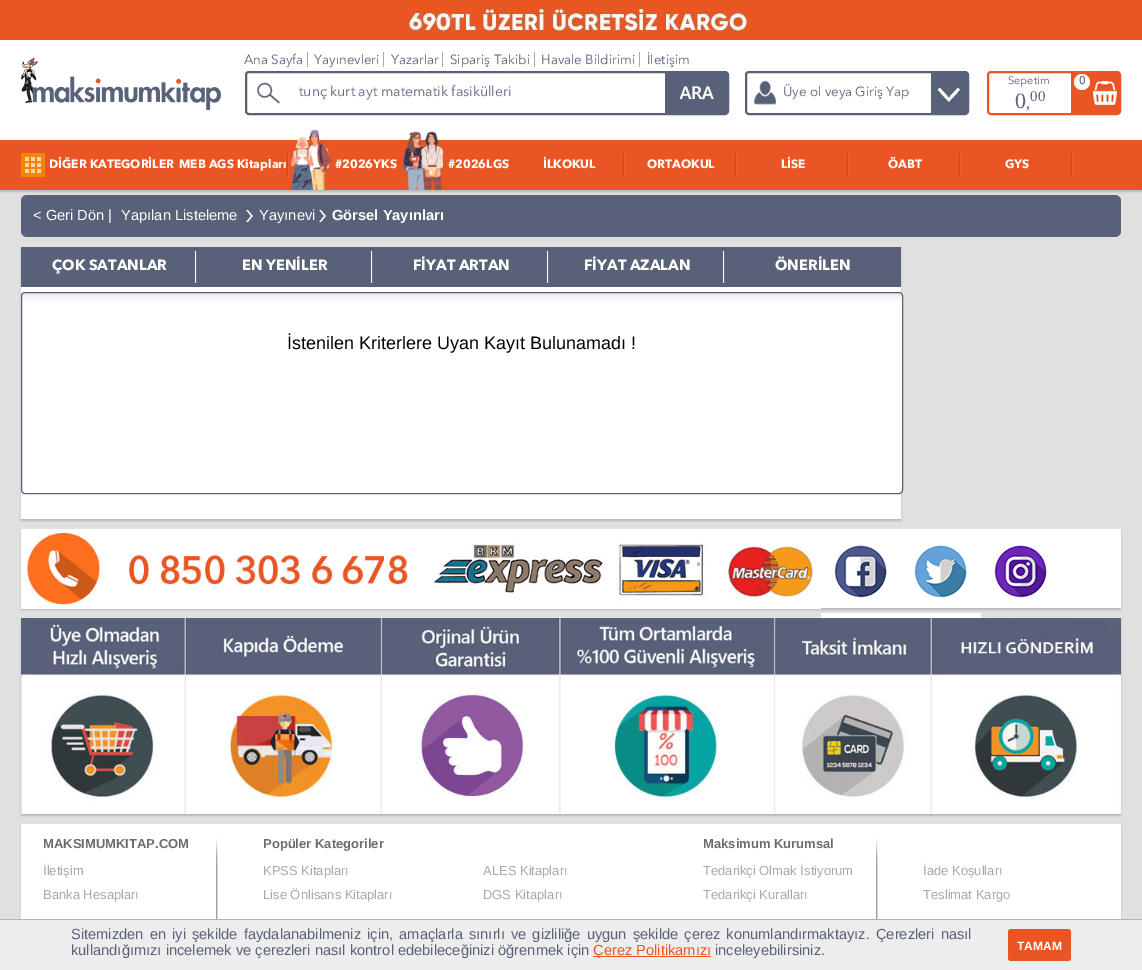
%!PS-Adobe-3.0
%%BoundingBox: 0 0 1142 970
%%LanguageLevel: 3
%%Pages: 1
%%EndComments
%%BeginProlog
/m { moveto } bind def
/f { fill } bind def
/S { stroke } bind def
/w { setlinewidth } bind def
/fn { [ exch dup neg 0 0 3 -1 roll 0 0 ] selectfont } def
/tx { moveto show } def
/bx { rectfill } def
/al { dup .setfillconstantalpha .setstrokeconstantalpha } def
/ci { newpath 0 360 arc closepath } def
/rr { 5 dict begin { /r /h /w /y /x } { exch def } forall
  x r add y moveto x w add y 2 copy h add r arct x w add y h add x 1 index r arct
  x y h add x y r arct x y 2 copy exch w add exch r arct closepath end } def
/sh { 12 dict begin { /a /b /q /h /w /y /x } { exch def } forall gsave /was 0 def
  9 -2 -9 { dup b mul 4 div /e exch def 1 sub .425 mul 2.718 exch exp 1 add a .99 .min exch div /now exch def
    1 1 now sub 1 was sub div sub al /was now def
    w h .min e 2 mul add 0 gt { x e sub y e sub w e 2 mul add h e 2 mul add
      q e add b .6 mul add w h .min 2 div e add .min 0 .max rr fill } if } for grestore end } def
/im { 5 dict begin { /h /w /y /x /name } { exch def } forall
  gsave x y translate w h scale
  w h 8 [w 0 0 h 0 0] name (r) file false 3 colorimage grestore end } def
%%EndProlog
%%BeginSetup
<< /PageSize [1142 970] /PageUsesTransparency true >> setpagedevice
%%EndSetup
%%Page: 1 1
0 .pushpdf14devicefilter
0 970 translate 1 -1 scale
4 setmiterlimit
0.878 setgray
0 0 1142 970 bx
0.914 0.337 0.133 setrgbcolor
0 0 1142 40 bx
(image0.raw) 399 0 354 33 im
0.722 setgray
0 142 1142 50 0 1 1 sh
1 setgray
0 40 1142 100 bx
(image1.raw) 21 58 200 52 im
/AvenirNext-Regular 13.25 fn
0.349 0.38 0.475 setrgbcolor
(Ana Sayfa) 244 64 tx
0.663 setgray
307 52 1 15 bx
0.349 0.38 0.475 setrgbcolor
(Yayınevleri) 314 64 tx
0.663 setgray
383 52 1 15 bx
0.349 0.38 0.475 setrgbcolor
(Yazarlar) 391 64 tx
0.663 setgray
442 52 1 15 bx
0.349 0.38 0.475 setrgbcolor
(Sipariş Takibi) 450 64 tx
0.663 setgray
534 52 1 15 bx
0.349 0.38 0.475 setrgbcolor
(Havale Bildirimi) 541 64 tx
0.663 setgray
639 52 1 15 bx
0.349 0.38 0.475 setrgbcolor
(İletişim) 647 64 tx
(image2.raw) 931 73 36 40 im
2 w
746 72 222 42 3 rr S
(image3.raw) 754 81 22 24 im
(Üye ol veya Giriş Yap) 783 96 tx
(image4.raw) 1071 73 48 40 im
0.914 0.337 0.137 setrgbcolor
988 72 132 42 3 rr S
/AvenirNext-Regular 11 fn
0.349 0.38 0.475 setrgbcolor
(Sepetim) 1008 84 tx
1 setgray
1082 82 8 ci f
/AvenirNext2-Bold 11 fn
0.349 0.38 0.475 setrgbcolor
(0) 1079 84 tx
/LiberationSerif-Regular 22 fn
(0) 1015 108 tx
/LiberationSerif-Regular 16 fn
(,) 1026 108 tx
/LiberationSerif-Regular 15 fn
(00) 1030 101 tx
(image5.raw) 257 82 23 22 im
246 72 482 42 3 rr S
/AvenirNext-Regular 14 fn
(tunç kurt ayt matematik fasikülleri) 299 96 tx
(image6.raw) 665 73 62 40 im
0.914 0.337 0.137 setrgbcolor
0 140 1142 50 bx
(image7.raw) 21 153 24 24 im
/AvenirNext-Bold 12 fn
1 setgray
(DİĞER KATEGORİLER) 49 168 tx
(image8.raw) 287 153 2 24 im
(MEB AGS Kitapları) 179 168 tx
(image9.raw) 291 130 40 60 im
(#2026YKS) 335 168 tx
(image10.raw) 403 131 40 59 im
(#2026LGS) 448 168 tx
(image8.raw) 623 153 2 24 im
(İLKOKUL) 543 168 tx
(image8.raw) 735 153 2 24 im
(ORTAOKUL) 647 168 tx
(image8.raw) 847 153 2 24 im
(LİSE) 781 168 tx
(image8.raw) 959 153 2 24 im
(ÖABT) 888 168 tx
(image8.raw) 1071 153 2 24 im
(GYS) 1005 168 tx
0.349 0.38 0.475 setrgbcolor
21 195 1100 42 6 rr f
/LiberationSans-Regular 14.67 fn
1 setgray
(< Geri Dön |) 33 220 tx
(Yapılan Listeleme) 121 220 tx
(image11.raw) 246 210 7 12 im
(Yayınevi) 259 220 tx
(image11.raw) 319 210 7 12 im
/LiberationSans-Bold 14.67 fn
(Görsel Yayınları) 332 220 tx
0.722 setgray
21 249 880 272 0 1 1 sh
1 setgray
21 287 880 232 bx
0.349 0.38 0.475 setrgbcolor
21 247 880 40 bx
(image12.raw) 195 251 2 32 im
/AvenirNext-Bold 14.67 fn
1 setgray
(ÇOK SATANLAR) 52 270 tx
(image12.raw) 371 251 2 32 im
(EN YENİLER) 242 270 tx
(image12.raw) 547 251 2 32 im
(FİYAT ARTAN) 413 270 tx
(image12.raw) 723 251 2 32 im
(FİYAT AZALAN) 584 270 tx
(ÖNERİLEN) 775 270 tx
21 292 882 202 4 rr f
(image13.raw) 21 293 882 8 im
0.349 0.38 0.475 setrgbcolor
1 w
21.5 292.5 881 201 3.5 rr S
/LiberationSans-Regular 18 fn
0.004 setgray
(İstenilen Kriterlere Uyan Kayıt Bulunamadı !) 287 349 tx
0.722 setgray
21 531 1100 79 0 1 1 sh
1 setgray
21 529 1100 79 bx
(image14.raw) 21 533 800 76 im
(image15.raw) 834 545 53 53 im
(image16.raw) 914 545 53 53 im
(image17.raw) 994 545 53 53 im
(image18.raw) 821 613 80 5 im
(image18.raw) 901 613 80 5 im
0.722 setgray
21 620 1100 196 0 1 1 sh
(image19.raw) 21 618 1100 196 im
21 826 1100 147 0 1 1 sh
1 setgray
21 824 1100 95 bx
(image20.raw) 216 837 2 82 im
/LiberationSans-Bold 13 fn
0.424 setgray
(MAKSIMUMKITAP.COM) 43 848 tx
/LiberationSans-Regular 13 fn
0.663 setgray
(İletişim) 43 875 tx
(Banka Hesapları) 43 899 tx
/LiberationSans-Bold 13 fn
0.424 setgray
(Popüler Kategoriler) 263 848 tx
/LiberationSans-Regular 13 fn
0.663 setgray
(KPSS Kitapları) 263 875 tx
(Lise Önlisans Kitapları) 263 899 tx
(ALES Kitapları) 483 875 tx
(DGS Kitapları) 483 899 tx
(image20.raw) 876 837 2 82 im
/LiberationSans-Bold 13 fn
0.424 setgray
(Maksimum Kurumsal) 703 848 tx
/LiberationSans-Regular 13 fn
0.663 setgray
(Tedarikçi Olmak İstiyorum) 703 875 tx
(Tedarikçi Kuralları) 703 899 tx
(İade Koşulları) 923 875 tx
(Teslimat Kargo) 923 899 tx
0.929 setgray
0 920 1142 50 bx
0.702 setgray
0 919 1142 1 bx
/LiberationSans-Regular 14.67 fn
0.349 0.38 0.475 setrgbcolor
71 939 m 2 0 32 (Sitemizden en iyi şekilde faydalanabilmeniz için, amaçlarla sınırlı ve gizliliğe uygun şekilde çerez konumlandırmaktayız. Çerezleri nasıl) widthshow
(kullandığımızı incelemek ve çerezleri nasıl kontrol edebileceğinizi öğrenmek için) 71 955 tx
0.914 0.337 0.137 setrgbcolor
593 956 118 1 bx
(Çerez Politikamızı) 593 955 tx
0.349 0.38 0.475 setrgbcolor
(inceleyebilirsiniz.) 715 955 tx
0.914 0.337 0.137 setrgbcolor
1008 929 63 32 3 rr f
/LiberationSans-Bold 12 fn
1 setgray
(TAMAM) 1017 950 tx
.poppdf14devicefilter showpage
%%EOF
